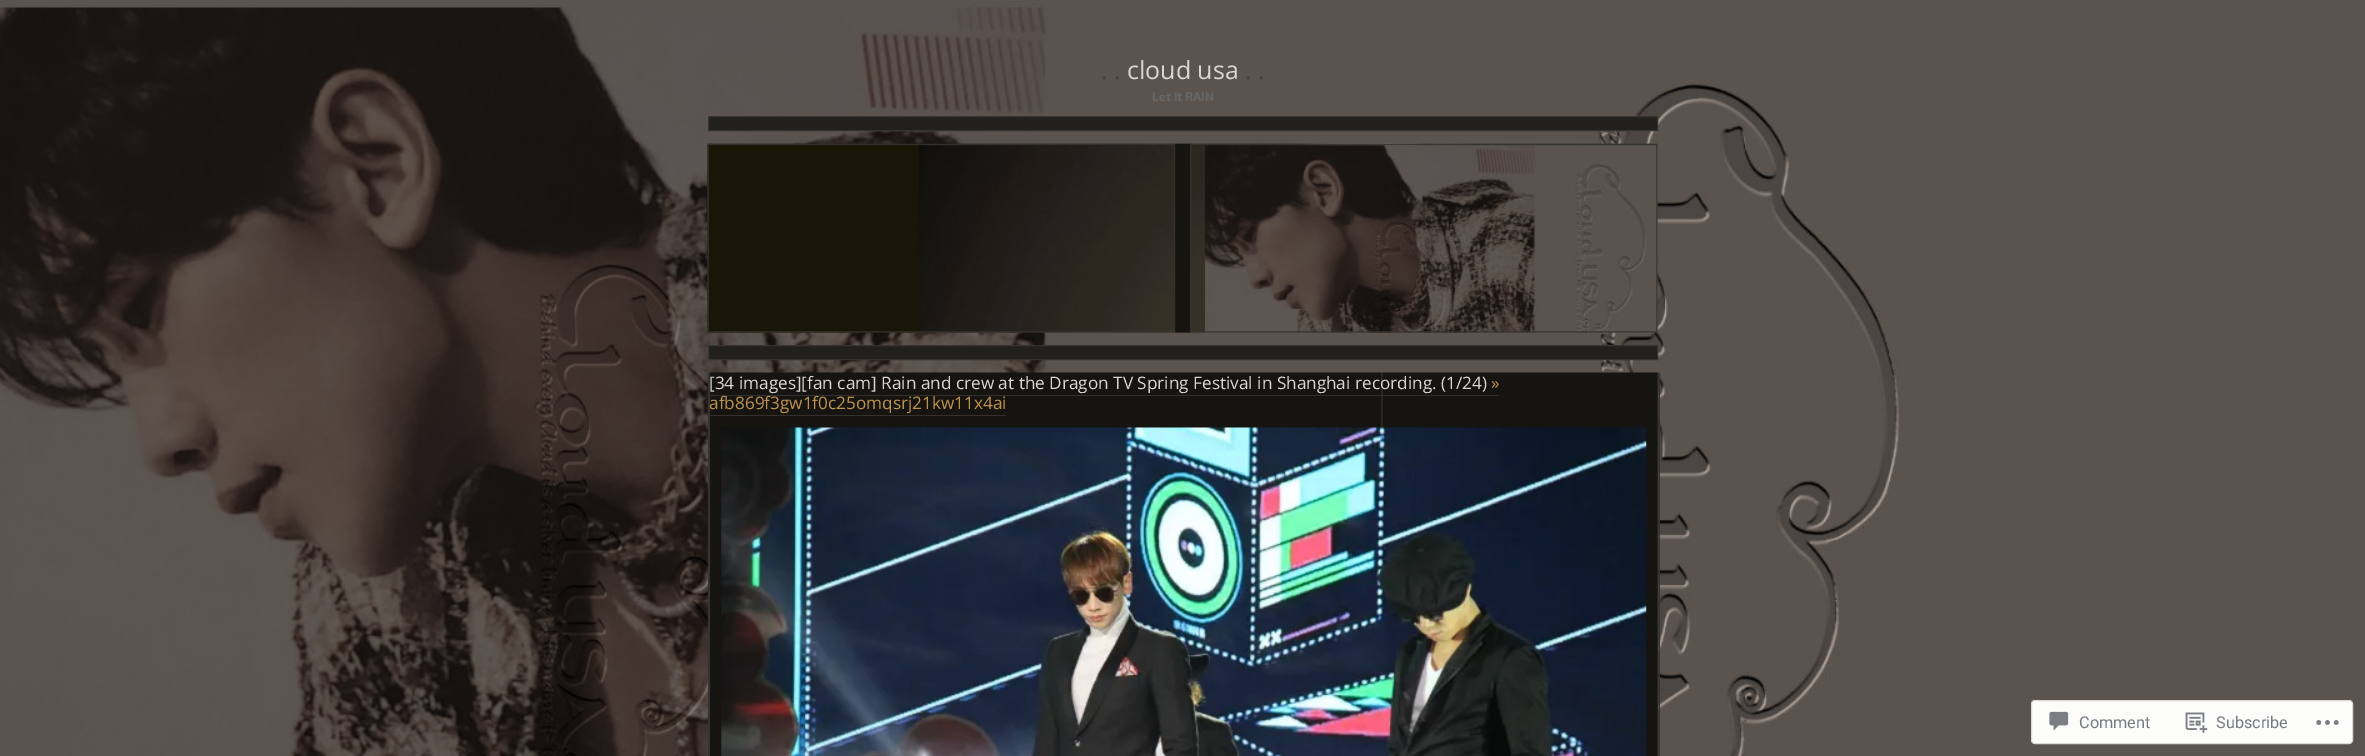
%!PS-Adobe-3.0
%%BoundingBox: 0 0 2365 756
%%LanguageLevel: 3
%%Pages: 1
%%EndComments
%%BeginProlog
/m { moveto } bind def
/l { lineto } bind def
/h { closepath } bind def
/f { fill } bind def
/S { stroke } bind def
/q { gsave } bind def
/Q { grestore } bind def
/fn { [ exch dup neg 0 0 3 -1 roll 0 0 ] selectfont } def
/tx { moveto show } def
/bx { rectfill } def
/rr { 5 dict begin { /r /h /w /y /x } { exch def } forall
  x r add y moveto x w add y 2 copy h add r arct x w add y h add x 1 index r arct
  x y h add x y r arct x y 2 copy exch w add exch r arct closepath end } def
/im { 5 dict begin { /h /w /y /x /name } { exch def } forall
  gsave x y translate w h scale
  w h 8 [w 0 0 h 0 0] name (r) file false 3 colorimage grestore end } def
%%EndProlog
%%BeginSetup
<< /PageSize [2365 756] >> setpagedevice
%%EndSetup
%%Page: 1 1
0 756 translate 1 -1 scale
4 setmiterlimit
1 setgray
0 0 2365 756 bx
(image0.raw) 0 0 2365 756 im
/OpenSans-Regular 25 fn
0.267 setgray
(. .) 1101 79 tx
0.847 0.843 0.827 setrgbcolor
(cloud usa) 1127 79 tx
0.267 setgray
(. .) 1245 79 tx
/Exo2-Bold 12.5 fn
0.4 setgray
(Let It RAIN) 1152 101 tx
0.133 0.125 0.114 setrgbcolor
708.5 116.5 m 1657.5 116.5 l 1657.5 130.5 l 708.5 130.5 l h q f Q
0.212 0.204 0.188 setrgbcolor
S
(image1.raw) 707 143 951 190 im
(image2.raw) 707 143 951 190 im
0.133 0.125 0.114 setrgbcolor
708.5 345.5 m 1657.5 345.5 l 1657.5 359.5 l 708.5 359.5 l h q f Q
0.212 0.204 0.188 setrgbcolor
S
(image3.raw) 708 372 951 384 im
1659 373 1 383 bx
708 373 1 383 bx
/OpenSans-Regular 17.2 fn
0.847 0.843 0.827 setrgbcolor
([34 images][fan cam] Rain and crew at the Dragon TV Spring Festival in Shanghai recording. \(1/24\)) 709 389 tx
0.741 0.576 0.31 setrgbcolor
(») 1491 389 tx
0.208 0.188 0.165 setrgbcolor
709 395 790 1 bx
0.741 0.576 0.31 setrgbcolor
(afb869f3gw1f0c25omqsrj21kw11x4ai) 709 409 tx
0.208 0.188 0.165 setrgbcolor
709 415 297 1 bx
(image4.raw) 721 427 926 329 im
0.988 0.988 0.984 setrgbcolor
2031.5 700.5 321 43 3.5 rr q f Q
0.851 0.851 0.859 setrgbcolor
S
(image5.raw) 2049 711 20 20 im
/Roboto-Regular 16.25 fn
0.467 0.482 0.506 setrgbcolor
(Comment) 2079 728 tx
(image6.raw) 2185 712 23 21 im
(Subscribe) 2216 728 tx
(image7.raw) 2316 720 23 5 im
showpage
%%EOF
